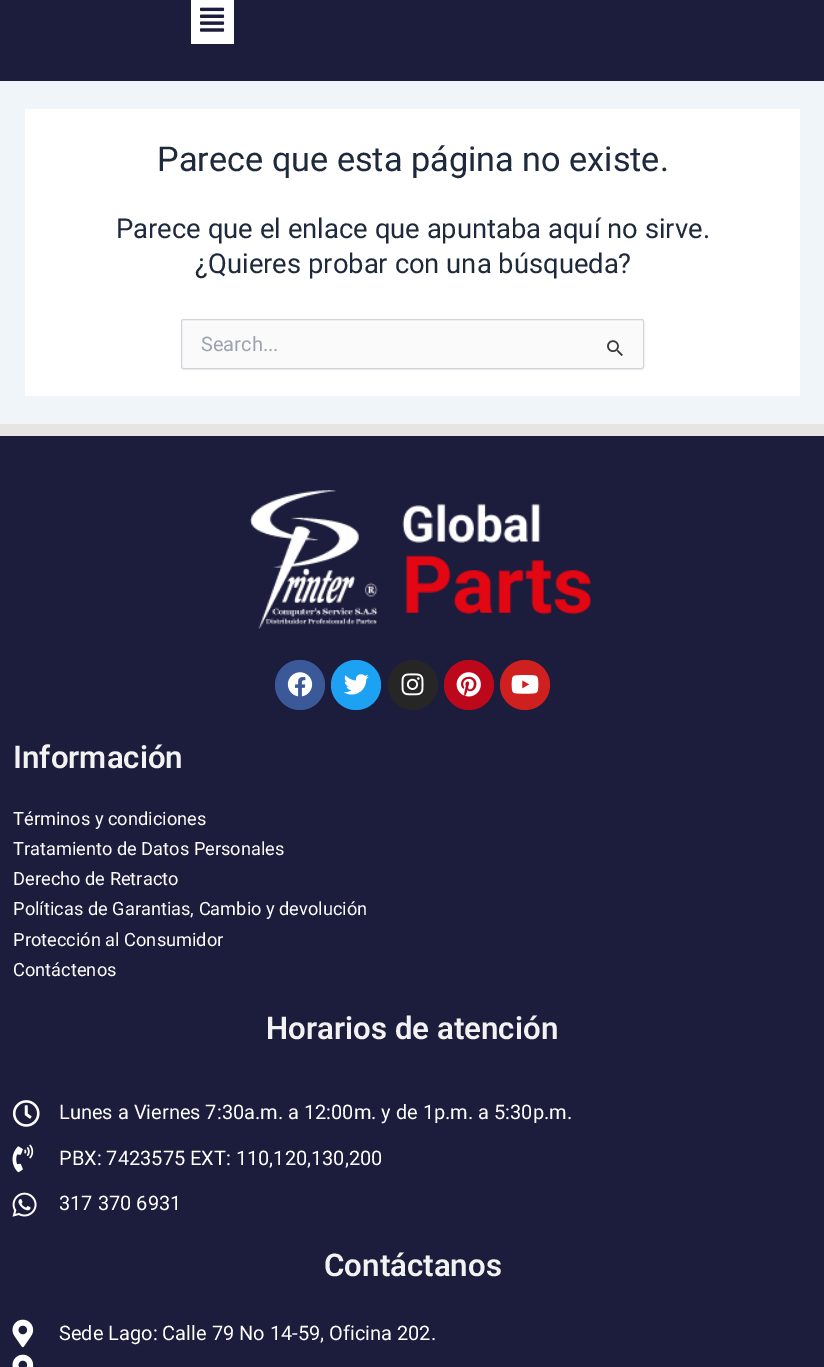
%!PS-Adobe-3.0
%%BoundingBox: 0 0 824 1367
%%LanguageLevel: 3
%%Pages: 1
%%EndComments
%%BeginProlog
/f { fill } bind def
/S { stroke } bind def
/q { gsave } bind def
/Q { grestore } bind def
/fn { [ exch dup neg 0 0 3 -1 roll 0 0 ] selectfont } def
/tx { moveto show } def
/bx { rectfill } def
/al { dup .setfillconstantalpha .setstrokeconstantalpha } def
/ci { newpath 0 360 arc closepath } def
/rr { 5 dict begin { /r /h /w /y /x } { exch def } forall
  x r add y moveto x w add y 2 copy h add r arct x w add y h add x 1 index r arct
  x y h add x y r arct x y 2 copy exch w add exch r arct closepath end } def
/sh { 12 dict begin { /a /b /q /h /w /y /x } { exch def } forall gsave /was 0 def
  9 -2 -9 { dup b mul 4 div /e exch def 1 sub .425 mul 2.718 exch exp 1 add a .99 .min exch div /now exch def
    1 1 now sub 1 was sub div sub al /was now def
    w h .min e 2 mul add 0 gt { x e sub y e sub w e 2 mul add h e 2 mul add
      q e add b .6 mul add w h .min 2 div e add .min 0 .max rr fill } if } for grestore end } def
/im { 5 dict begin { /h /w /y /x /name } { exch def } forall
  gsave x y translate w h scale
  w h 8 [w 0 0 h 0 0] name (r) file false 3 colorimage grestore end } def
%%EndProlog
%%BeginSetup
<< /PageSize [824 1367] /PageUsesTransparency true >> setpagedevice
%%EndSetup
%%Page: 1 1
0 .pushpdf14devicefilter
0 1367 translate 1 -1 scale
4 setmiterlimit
0.941 0.961 0.98 setrgbcolor
0 0 824 1367 bx
0.11 0.11 0.235 setrgbcolor
0 0 824 81 bx
1 setgray
191 0 43 44 bx
(image0.raw) 200 7 25 25 im
25 109 775 287 bx
/Roboto-Regular 34.25 fn
0.118 0.161 0.231 setrgbcolor
(Parece que esta página no existe.) 157 171 tx
/Roboto-Regular 27.4 fn
(Parece que el enlace que apuntaba aquí no sirve.) 116 238 tx
(¿Quieres probar con una búsqueda?) 195 273 tx
0 setgray
181 320 463 50 2.5 1 0.05 sh
0.98 setgray
181.5 319.5 462 49 2 rr q f Q
0.82 0.835 0.859 setrgbcolor
S
/Roboto-Regular 20 fn
0.612 0.639 0.686 setrgbcolor
(Search...) 201 351 tx
(image1.raw) 607 340 16 16 im
0.11 0.11 0.235 setrgbcolor
0 436 824 931 bx
0.906 0.894 0.894 setrgbcolor
0 424 824 12 bx
(image2.raw) 250 490 342 139 im
0.231 0.349 0.596 setrgbcolor
300 685 25 ci f
(image3.raw) 287 672 26 25 im
0.114 0.631 0.949 setrgbcolor
356 685 25 ci f
(image4.raw) 344 674 25 21 im
0.149 setgray
413 685 25 ci f
(image5.raw) 401 673 23 23 im
0.741 0.031 0.11 setrgbcolor
469 685 25 ci f
(image6.raw) 456 672 25 25 im
0.804 0.125 0.122 setrgbcolor
525 685 25 ci f
(image7.raw) 511 675 28 19 im
/Roboto-SemiBold 31.25 fn
0.949 setgray
(Información) 13 768 tx
/Roboto-Regular 18.25 fn
1 setgray
(Términos y condiciones) 13 825 tx
(Tratamiento de Datos Personales) 13 855 tx
(Derecho de Retracto) 13 885 tx
(Políticas de Garantias, Cambio y devolución) 13 915 tx
(Protección al Consumidor) 13 946 tx
(Contáctenos) 13 976 tx
/Roboto-SemiBold 31.25 fn
0.949 setgray
(Horarios de atención) 266 1039 tx
(image8.raw) 12 1100 28 27 im
/Roboto-Regular 20 fn
1 setgray
(Lunes a Viernes 7:30a.m. a 12:00m. y de 1p.m. a 5:30p.m.) 59 1119 tx
(image9.raw) 12 1144 22 29 im
(PBX: 7423575 EXT: 110,120,130,200) 59 1165 tx
(image10.raw) 12 1192 25 25 im
(317 370 6931) 59 1210 tx
/Roboto-SemiBold 31.25 fn
0.949 setgray
(Contáctanos) 324 1276 tx
(image11.raw) 12 1319 22 29 im
/Roboto-Regular 20 fn
1 setgray
(Sede Lago: Calle 79 No 14-59, Oficina 202.) 59 1340 tx
(image12.raw) 12 1354 22 13 im
.poppdf14devicefilter showpage
%%EOF
